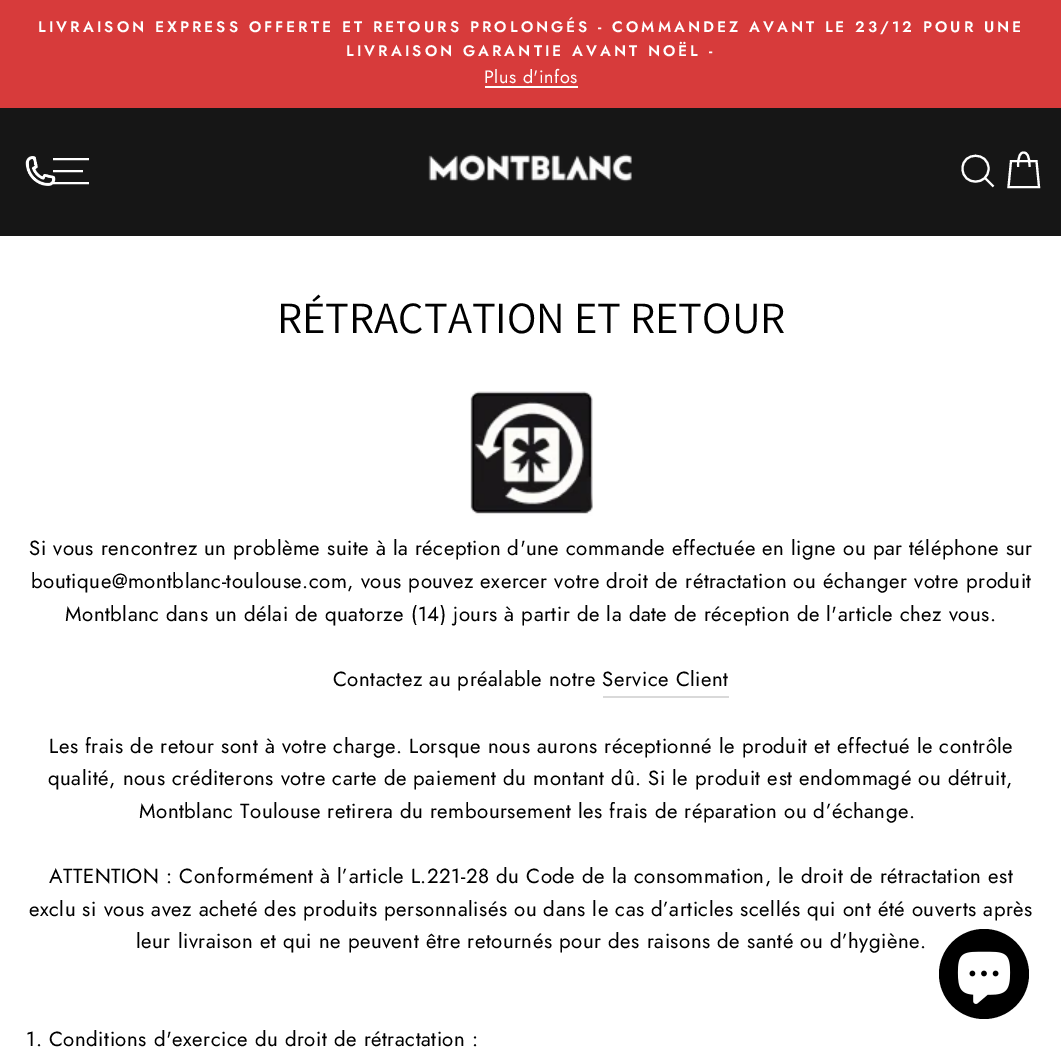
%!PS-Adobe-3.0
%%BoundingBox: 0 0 1061 1049
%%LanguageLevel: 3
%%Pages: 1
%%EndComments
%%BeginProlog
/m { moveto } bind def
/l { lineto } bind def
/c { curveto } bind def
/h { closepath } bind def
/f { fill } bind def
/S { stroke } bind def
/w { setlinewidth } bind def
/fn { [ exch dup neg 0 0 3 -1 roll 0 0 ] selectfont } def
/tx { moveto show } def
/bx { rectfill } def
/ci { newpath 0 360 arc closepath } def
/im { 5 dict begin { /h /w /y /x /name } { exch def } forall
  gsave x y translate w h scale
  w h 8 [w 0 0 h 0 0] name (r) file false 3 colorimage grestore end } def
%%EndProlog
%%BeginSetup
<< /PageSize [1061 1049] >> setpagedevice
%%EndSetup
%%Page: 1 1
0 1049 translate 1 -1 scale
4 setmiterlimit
1 setgray
0 0 1061 1049 bx
0.843 0.231 0.231 setrgbcolor
0 0 1061 108 bx
/Jost-SemiBold 15.3 fn
1 setgray
38 32 m 3.05 0 (LIVRAISON EXPRESS OFFERTE ET RETOURS PROLONGÉS - COMMANDEZ AVANT LE 23/12 POUR UNE) ashow
346 56 m 3.05 0 (LIVRAISON GARANTIE AVANT NOËL -) ashow
/Jost-Regular 18 fn
484 83 m 0.51 0 (Plus d'infos) ashow
485 86 93 2 bx
0.086 setgray
0 108 1061 128 bx
(image0.raw) 25 156 31 30 im
1 setgray
2.1 w
53 159 m 89 159 l 53 171 m 83 171 l 53 183 m 89 183 l S
(image1.raw) 428 154 204 28 im
988.5 168.5 m 988.5 186 962.5 186 962.5 168.5 c 962.5 151.5 988.5 151.5 988.5 168.5 c h 993.5 186.5 m 985 178 l S
1018 167 m 1018 155.5 1020.5 152.5 1023.5 152.5 c 1027 152.5 1029.5 155.5 1029.5 167 c 1011 161 m 1036.5 161 l 1039 187 l 1008.5 187 l h S
/Assistant-Regular 44.6 fn
0 setgray
(RÉTRACTATION ET RETOUR) 277 333 tx
(image2.raw) 470 391 123 125 im
/Jost-Regular 20.4 fn
29 555 m 0.51 0 (Si vous rencontrez un problème suite à la réception d'une commande effectuée en ligne ou par téléphone sur) ashow
31 588 m 0.51 0 (boutique@montblanc-toulouse.com, vous pouvez exercer votre droit de rétractation ou échanger votre produit) ashow
65 621 m 0.51 0 (Montblanc dans un délai de quatorze \(14\) jours à partir de la date de réception de l'article chez vous.) ashow
333 686 m 0.51 0 (Contactez au préalable notre Service Client) ashow
0.851 setgray
603 696 126 2 bx
0 setgray
49 753 m 0.51 0 (Les frais de retour sont à votre charge. Lorsque nous aurons réceptionné le produit et effectué le contrôle) ashow
48 785 m 0.51 0 (qualité, nous créditerons votre carte de paiement du montant dû. Si le produit est endommagé ou détruit,) ashow
139 818 m 0.51 0 (Montblanc Toulouse retirera du remboursement les frais de réparation ou d’échange.) ashow
49 883 m 0.51 0 (ATTENTION : Conformément à l’article L.221-28 du Code de la consommation, le droit de rétractation est) ashow
29 916 m 0.51 0 (exclu si vous avez acheté des produits personnalisés ou dans le cas d’articles scellés qui ont été ouverts après) ashow
136 948 m 0.51 0 (leur livraison et qui ne peuvent être retournés pour des raisons de santé ou d’hygiène.) ashow
26 1046 m 0.51 0 (1. Conditions d'exercice du droit de rétractation :) ashow
984 974 45 ci f
(image3.raw) 957 951 54 53 im
showpage
%%EOF
